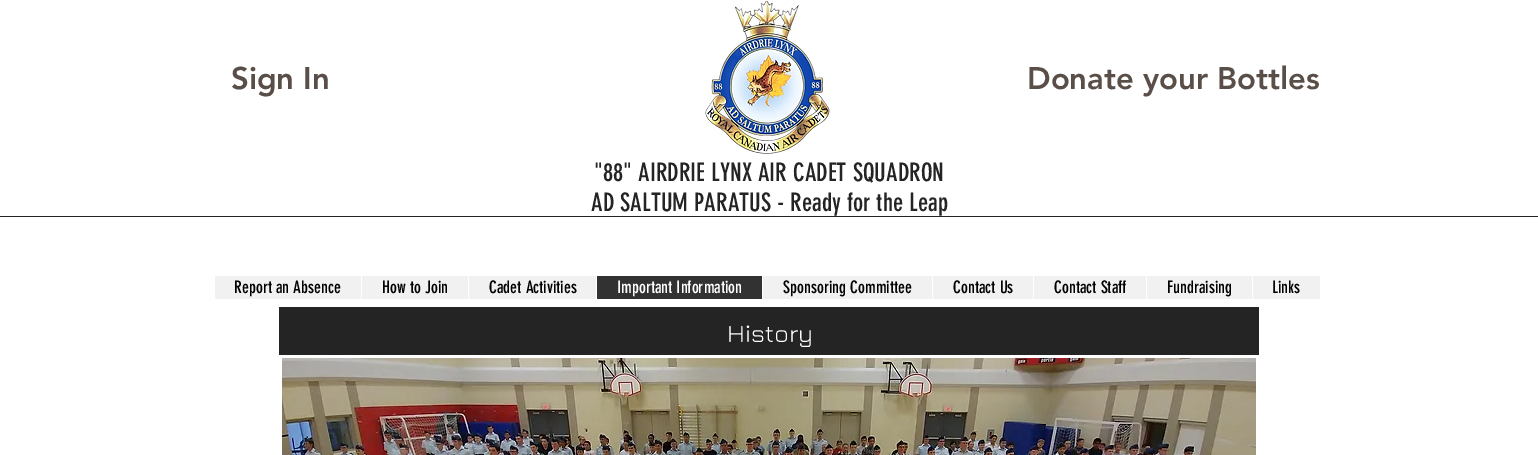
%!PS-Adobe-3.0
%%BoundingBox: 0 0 1538 455
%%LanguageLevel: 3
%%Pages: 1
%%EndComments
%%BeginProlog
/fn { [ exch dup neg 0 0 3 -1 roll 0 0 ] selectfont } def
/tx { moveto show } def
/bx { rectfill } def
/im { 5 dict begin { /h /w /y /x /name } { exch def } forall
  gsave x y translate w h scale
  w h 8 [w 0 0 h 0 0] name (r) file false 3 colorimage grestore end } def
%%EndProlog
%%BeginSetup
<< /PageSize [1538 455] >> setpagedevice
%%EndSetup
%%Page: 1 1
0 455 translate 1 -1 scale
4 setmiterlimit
1 setgray
0 0 1538 455 bx
/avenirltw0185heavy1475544-Black 31 fn
0.349 0.306 0.282 setrgbcolor
(Sign In) 231 89 tx
(image0.raw) 705 1 125 153 im
(Donate your Bottles) 1027 89 tx
/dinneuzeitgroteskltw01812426-Regular 25 fn
0.141 setgray
("88" AIRDRIE LYNX AIR CADET SQUADRON) 594 181 tx
(AD SALTUM PARATUS - Ready for the Leap) 591 211 tx
0 216 1538 1 bx
0.945 setgray
215 276 1105 23 bx
/dinneuzeitgroteskltw01812426-Regular 17 fn
0 setgray
(Report an Absence) 234 293 tx
1 setgray
361 276 1 23 bx
0 setgray
(How to Join) 382 293 tx
1 setgray
468 276 1 23 bx
0 setgray
(Cadet Activities) 489 293 tx
0.196 setgray
597 276 165 23 bx
1 setgray
596 276 1 23 bx
(Important Information) 617 293 tx
762 276 1 23 bx
0 setgray
(Sponsoring Committee) 783 293 tx
1 setgray
932 276 1 23 bx
0 setgray
(Contact Us) 953 293 tx
1 setgray
1033 276 1 23 bx
0 setgray
(Contact Staff) 1054 293 tx
1 setgray
1146 276 1 23 bx
0 setgray
(Fundraising) 1167 293 tx
1 setgray
1252 276 1 23 bx
0 setgray
(Links) 1272 293 tx
0.141 setgray
279 307 980 48 bx
/Jura-Regular 25 fn
1 setgray
(History) 727 342 tx
(image1.raw) 282 358 974 97 im
showpage
%%EOF
